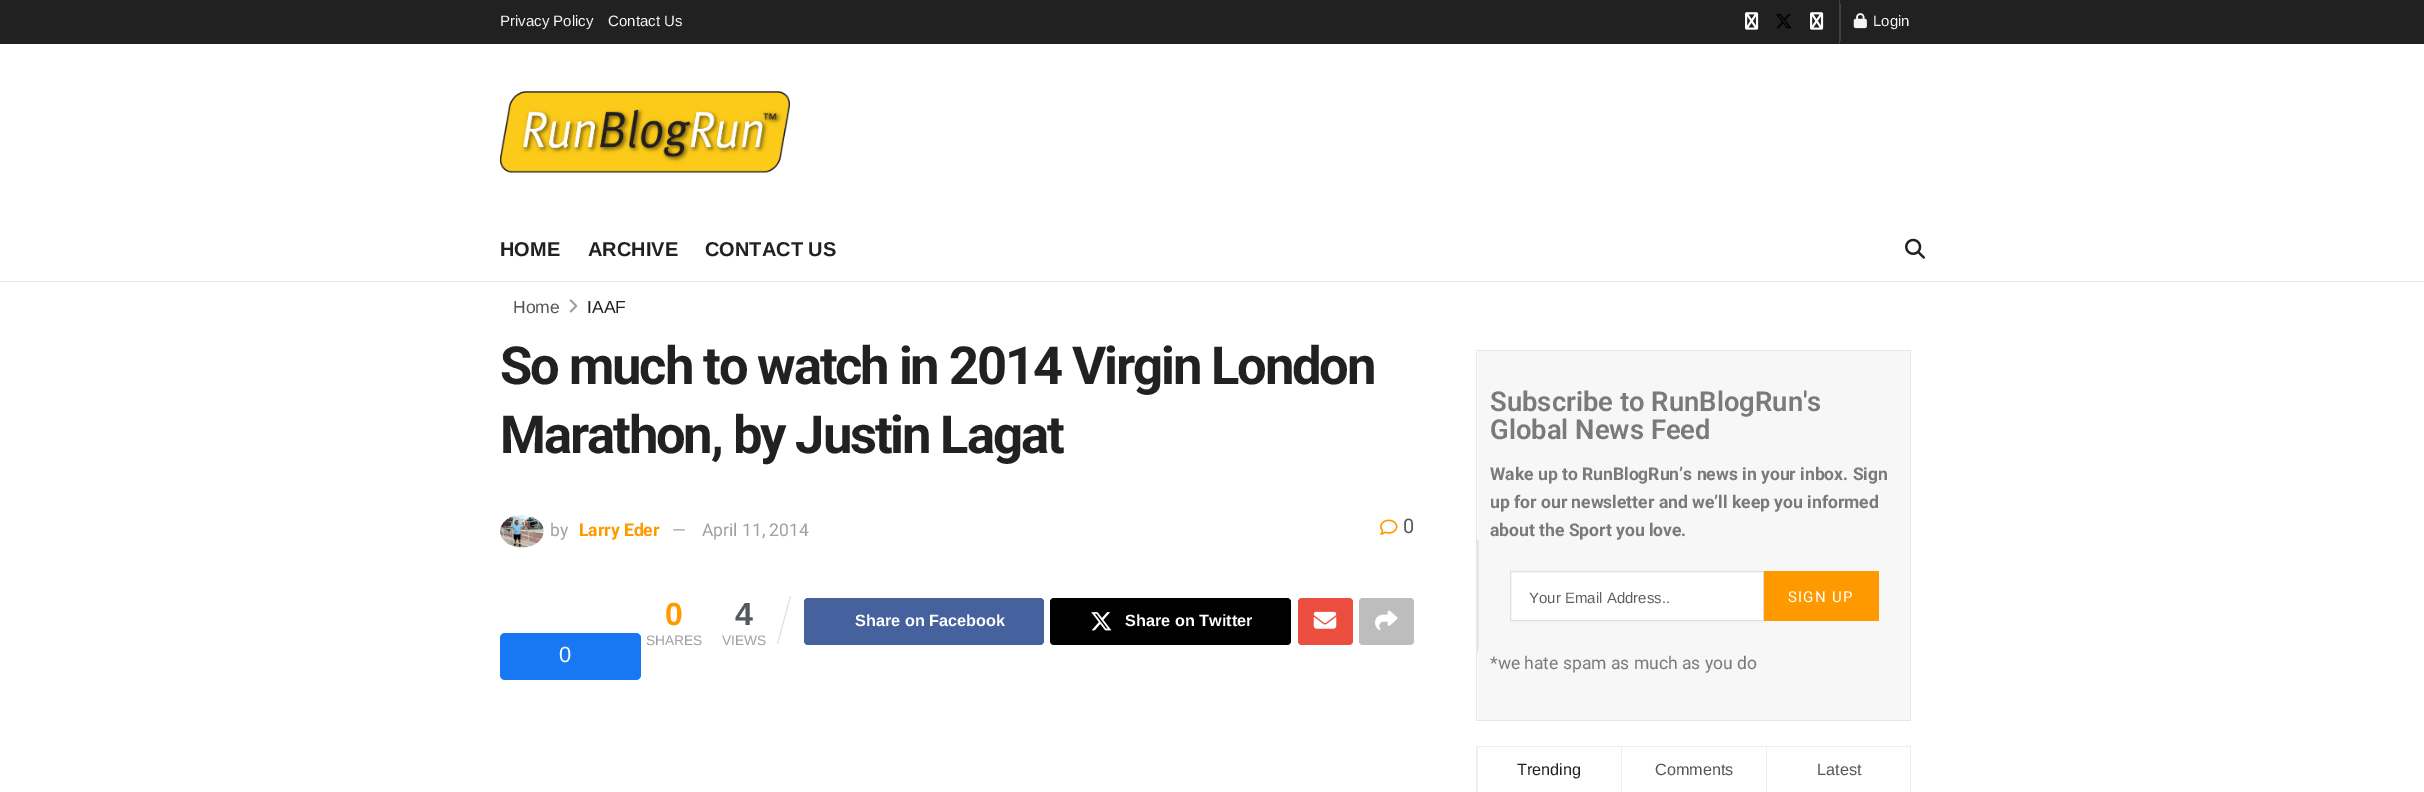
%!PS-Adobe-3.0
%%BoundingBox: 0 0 2424 792
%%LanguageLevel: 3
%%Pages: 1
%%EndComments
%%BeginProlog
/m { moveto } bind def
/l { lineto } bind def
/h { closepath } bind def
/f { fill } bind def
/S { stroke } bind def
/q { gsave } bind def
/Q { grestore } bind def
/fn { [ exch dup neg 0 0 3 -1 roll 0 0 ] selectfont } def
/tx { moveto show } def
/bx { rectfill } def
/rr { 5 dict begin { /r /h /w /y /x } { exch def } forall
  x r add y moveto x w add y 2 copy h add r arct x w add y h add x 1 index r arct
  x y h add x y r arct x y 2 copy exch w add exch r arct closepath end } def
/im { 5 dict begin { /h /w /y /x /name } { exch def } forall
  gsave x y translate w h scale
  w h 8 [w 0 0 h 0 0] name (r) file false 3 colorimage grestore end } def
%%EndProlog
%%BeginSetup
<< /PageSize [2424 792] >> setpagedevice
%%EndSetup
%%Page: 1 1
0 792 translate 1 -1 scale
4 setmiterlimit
1 setgray
0 0 2424 792 bx
0.129 setgray
0 0 2424 44 bx
0.259 setgray
1839 0 1 44 bx
/LiberationSans-Regular 15 fn
0.961 setgray
(Privacy Policy) 500 26 tx
(Contact Us) 608 26 tx
(image0.raw) 1745 12 14 18 im
(image1.raw) 1776 14 16 15 im
(image0.raw) 1810 12 14 18 im
0.259 setgray
1840 4 1 37 bx
(image2.raw) 1853 13 14 16 im
0.961 setgray
(Login) 1873 26 tx
(image3.raw) 500 91 290 82 im
0.91 setgray
0 281 2424 1 bx
/LiberationSans-Bold 20 fn
0.129 setgray
(HOME) 500 256 tx
(ARCHIVE) 588 256 tx
(CONTACT US) 705 256 tx
(image4.raw) 1905 238 20 21 im
/LiberationSans-Regular 17.5 fn
0.325 0.345 0.361 setrgbcolor
(Home) 513 313 tx
(image5.raw) 569 299 9 14 im
0.129 setgray
(IAAF) 587 313 tx
/Roboto-Bold 52.5 fn
500 384 m -2.1 0 (So much to watch in 2014 Virgin London) ashow
500 453 m -2.1 0 (Marathon, by Justin Lagat) ashow
(image6.raw) 500 515 44 33 im
/Roboto-Regular 17.5 fn
0.627 setgray
(by) 550 536 tx
/Roboto-Bold 17.5 fn
1 0.6 0 setrgbcolor
(Larry Eder) 579 536 tx
/Roboto-Regular 17.5 fn
0.627 setgray
(—) 672 536 tx
(April 11, 2014) 702 536 tx
(image7.raw) 1380 519 18 16 im
/Roboto-Regular 20 fn
0.325 0.345 0.361 setrgbcolor
(0) 1403 533 tx
/LiberationSans-Bold 32 fn
1 0.6 0 setrgbcolor
(0) 665 625 tx
/LiberationSans-Regular 13.75 fn
0.627 setgray
(SHARES) 646 645 tx
/LiberationSans-Bold 32 fn
0.325 0.345 0.361 setrgbcolor
(4) 735 625 tx
0.878 setgray
790 596 m 791 596 l 778 644 l 777 644 l h f
/LiberationSans-Regular 13.75 fn
0.627 setgray
(VIEWS) 722 645 tx
0.271 0.384 0.624 setrgbcolor
804 598 240 47 4 rr f
/LiberationSans-Bold 16.25 fn
1 setgray
(Share on Facebook) 855 626 tx
0 setgray
1050 598 241 47 4 rr f
(image8.raw) 1091 612 21 19 im
1 setgray
(Share on Twitter) 1125 626 tx
0.922 0.302 0.247 setrgbcolor
1298 598 55 47 4 rr f
(image9.raw) 1313 611 24 18 im
0.741 setgray
1359 598 55 47 4 rr f
(image10.raw) 1375 610 23 21 im
0.094 0.467 0.949 setrgbcolor
500 633 141 47 5 rr f
/LiberationSans-Regular 22 fn
1 setgray
(0) 559 662 tx
0.969 setgray
1478 351 432 189 bx
0.902 setgray
1476 350 435 1 bx
1910 350 1 371 bx
1476 350 1 194 bx
/Roboto-SemiBold 27.4 fn
0.478 setgray
(Subscribe to RunBlogRun's) 1490 411 tx
(Global News Feed) 1490 439 tx
/Roboto-Bold 17.5 fn
(Wake up to RunBlogRun’s news in your inbox. Sign) 1490 480 tx
(up for our newsletter and we’ll keep you informed) 1490 508 tx
(about the Sport you love.) 1490 536 tx
0.969 setgray
1479 540 431 109 bx
0.902 setgray
1476 540 3 113 bx
1 setgray
1510.5 571.5 m 1763.5 571.5 l 1763.5 620.5 l 1510.5 620.5 l h q f Q
0.878 setgray
S
/LiberationSans-Regular 15 fn
0.376 setgray
(Your Email Address..) 1529 603 tx
1 0.6 0 setrgbcolor
1764 571 115 50 bx
/Roboto-Regular 15 fn
1 setgray
1788 602 m 1.25 0 (SIGN UP) ashow
0.969 setgray
1478 649 432 71 bx
0.902 setgray
1476 720 435 1 bx
1476 649 1 72 bx
/Roboto-Regular 17.5 fn
0.478 setgray
(*we hate spam as much as you do) 1490 669 tx
0.933 setgray
1476 746 435 1 bx
1476 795 m 1476 746 l 1478 748 l 1478 792 l h f
/LiberationSans-Regular 16.25 fn
0.129 setgray
(Trending) 1517 775 tx
0.933 setgray
1621 746 1 46 bx
0.325 0.345 0.361 setrgbcolor
(Comments) 1655 775 tx
0.933 setgray
1910 746 1 46 bx
1766 746 1 46 bx
0.325 0.345 0.361 setrgbcolor
(Latest) 1817 775 tx
showpage
%%EOF
